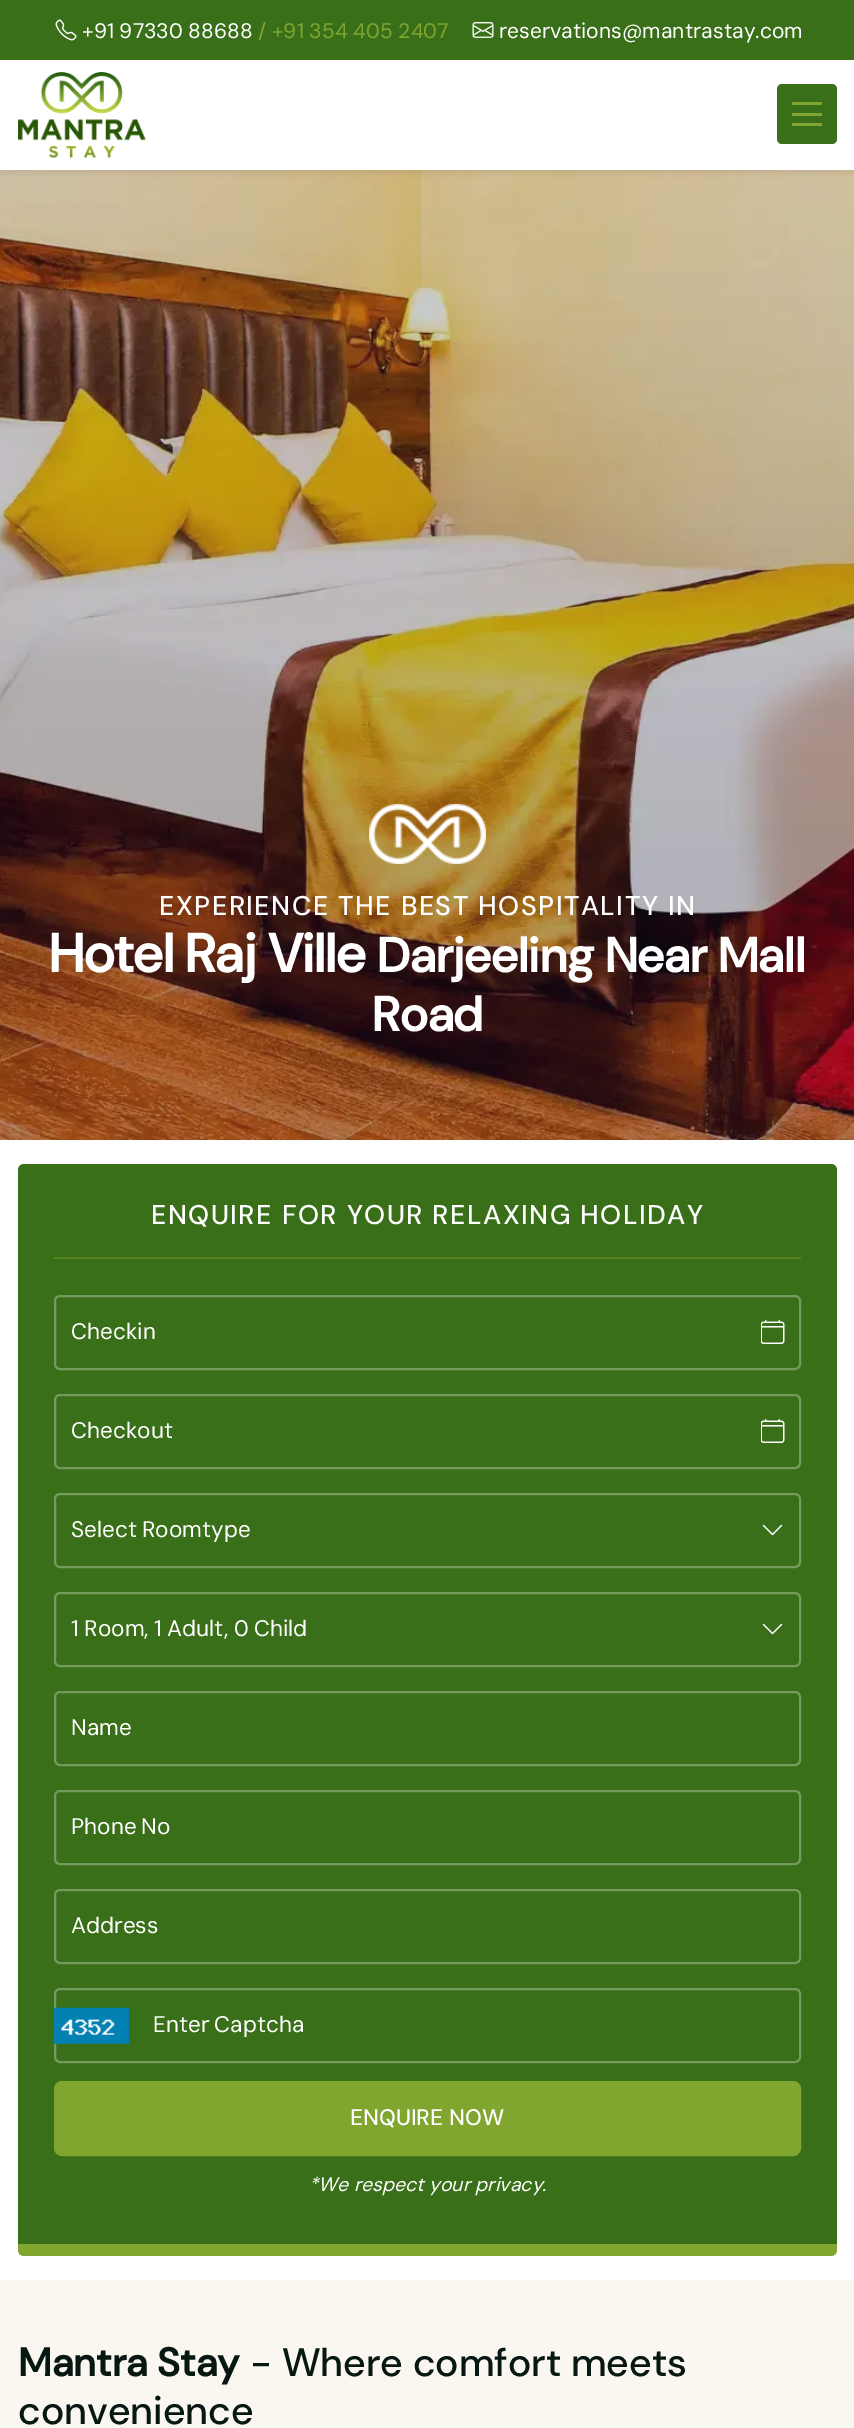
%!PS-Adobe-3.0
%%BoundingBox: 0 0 854 2428
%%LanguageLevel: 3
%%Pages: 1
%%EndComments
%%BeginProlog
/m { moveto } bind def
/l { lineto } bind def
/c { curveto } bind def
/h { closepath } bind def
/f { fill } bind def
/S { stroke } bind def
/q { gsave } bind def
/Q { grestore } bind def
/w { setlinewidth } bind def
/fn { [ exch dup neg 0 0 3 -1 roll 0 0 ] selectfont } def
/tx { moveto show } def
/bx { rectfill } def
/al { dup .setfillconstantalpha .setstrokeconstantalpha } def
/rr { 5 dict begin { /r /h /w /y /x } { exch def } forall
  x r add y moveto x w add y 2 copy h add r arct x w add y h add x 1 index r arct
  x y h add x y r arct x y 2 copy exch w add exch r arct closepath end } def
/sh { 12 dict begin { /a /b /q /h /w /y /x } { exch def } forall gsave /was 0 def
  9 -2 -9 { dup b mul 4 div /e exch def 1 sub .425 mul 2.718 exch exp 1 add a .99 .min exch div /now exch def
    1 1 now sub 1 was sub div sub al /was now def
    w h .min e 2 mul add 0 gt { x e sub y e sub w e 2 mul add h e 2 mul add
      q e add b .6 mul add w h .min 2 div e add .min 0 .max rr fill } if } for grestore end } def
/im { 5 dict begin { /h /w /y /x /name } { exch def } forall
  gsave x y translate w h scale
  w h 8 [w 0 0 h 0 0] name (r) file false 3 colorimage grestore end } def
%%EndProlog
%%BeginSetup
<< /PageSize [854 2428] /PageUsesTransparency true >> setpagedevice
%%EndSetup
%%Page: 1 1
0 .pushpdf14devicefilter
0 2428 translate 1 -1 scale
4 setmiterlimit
1 setgray
0 0 854 2428 bx
(image3.raw) 0 170 854 970 im
0 setgray
0 3 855 170 0 3 0.07 sh
1 setgray
0 60 854 110 bx
0.224 0.435 0.094 setrgbcolor
0 0 854 60 bx
(image0.raw) 55 19 22 22 im
/DMSans-Regular 21 fn
1 setgray
(+91 97330 88688) 82 38 tx
0.506 0.651 0.188 setrgbcolor
(/ +91 354 405 2407) 258 38 tx
(image1.raw) 472 22 22 16 im
1 setgray
(reservations@mantrastay.com) 499 38 tx
(image2.raw) 18 72 128 86 im
0.224 0.435 0.094 setrgbcolor
777 84 60 60 5 rr f
0.506 0.651 0.188 setrgbcolor
792 102 30 3 bx
792 113 30 3 bx
792 123 30 3 bx
(image4.raw) 369 804 117 60 im
/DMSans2-Medium 27 fn
1 setgray
159 915 m 1.5 0 (EXPERIENCE THE BEST HOSPITALITY IN) ashow
/DMSans2-Bold 54 fn
(Hotel Raj Ville) 49 972 tx
/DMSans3-Bold 48.5 fn
(Darjeeling Near Mall) 377 972 tx
(Road) 372 1031 tx
0.224 0.435 0.094 setrgbcolor
24 1164 m 831 1164 l 834.5 1164 837 1166.5 837 1170 c 837 2244 l 18 2244 l 18 1170 l 18 1166.5 20.5 1164 24 1164 c h f
/DMSans2-Medium 27 fn
1 setgray
151 1224 m 1.5 0 (ENQUIRE FOR YOUR RELAXING HOLIDAY) ashow
0.337 0.522 0.133 setrgbcolor
54 1257 747 2 bx
(image5.raw) 761 1320 24 24 im
0.455 0.604 0.365 setrgbcolor
2 w
55 1296 745 73 5 rr S
/DMSans-Regular 22.5 fn
1 setgray
(Checkin) 71 1339 tx
(image5.raw) 761 1419 24 24 im
0.455 0.604 0.365 setrgbcolor
55 1395 745 73 5 rr S
1 setgray
(Checkout) 71 1438 tx
(image6.raw) 762 1524 21 12 im
0.455 0.604 0.365 setrgbcolor
55 1494 745 73 5 rr S
1 setgray
71 1537 m -1 0 32 (Select Roomtype) widthshow
(image6.raw) 762 1623 21 12 im
0.455 0.604 0.365 setrgbcolor
55 1593 745 73 5 rr S
1 setgray
71 1636 m -0.5 0 32 (1 Room, 1 Adult, 0 Child) widthshow
0.455 0.604 0.365 setrgbcolor
55 1692 745 73 5 rr S
1 setgray
(Name) 71 1735 tx
0.455 0.604 0.365 setrgbcolor
55 1791 745 73 5 rr S
1 setgray
71 1834 m -1 0 32 (Phone No) widthshow
0.455 0.604 0.365 setrgbcolor
55 1890 745 73 5 rr S
1 setgray
(Address) 71 1933 tx
0.455 0.604 0.365 setrgbcolor
55 1989 745 73 5 rr S
(image7.raw) 54 2007 75 37 im
1 setgray
153 2032 m -1 0 32 (Enter Captcha) widthshow
0.506 0.651 0.188 setrgbcolor
55 2082 745 73 7 rr q f Q
S
/DMSans3-Medium 22.5 fn
1 setgray
(ENQUIRE NOW) 350 2125 tx
/DMSans-Italic 19.5 fn
(*We respect your privacy.) 309 2191 tx
0.506 0.651 0.188 setrgbcolor
18 2244 m 837 2244 l 837 2250 l 837 2253.5 834.5 2256 831 2256 c 24 2256 l 20.5 2256 18 2253.5 18 2250 c h f
0.98 0.969 0.945 setrgbcolor
0 2280 854 148 bx
/DMSans-Bold 39.5 fn
0.027 0.09 0.067 setrgbcolor
(Mantra Stay) 18 2376 tx
/DMSans-Medium 39.5 fn
(- Where comfort meets) 250 2376 tx
(convenience) 18 2424 tx
.poppdf14devicefilter showpage
%%EOF
